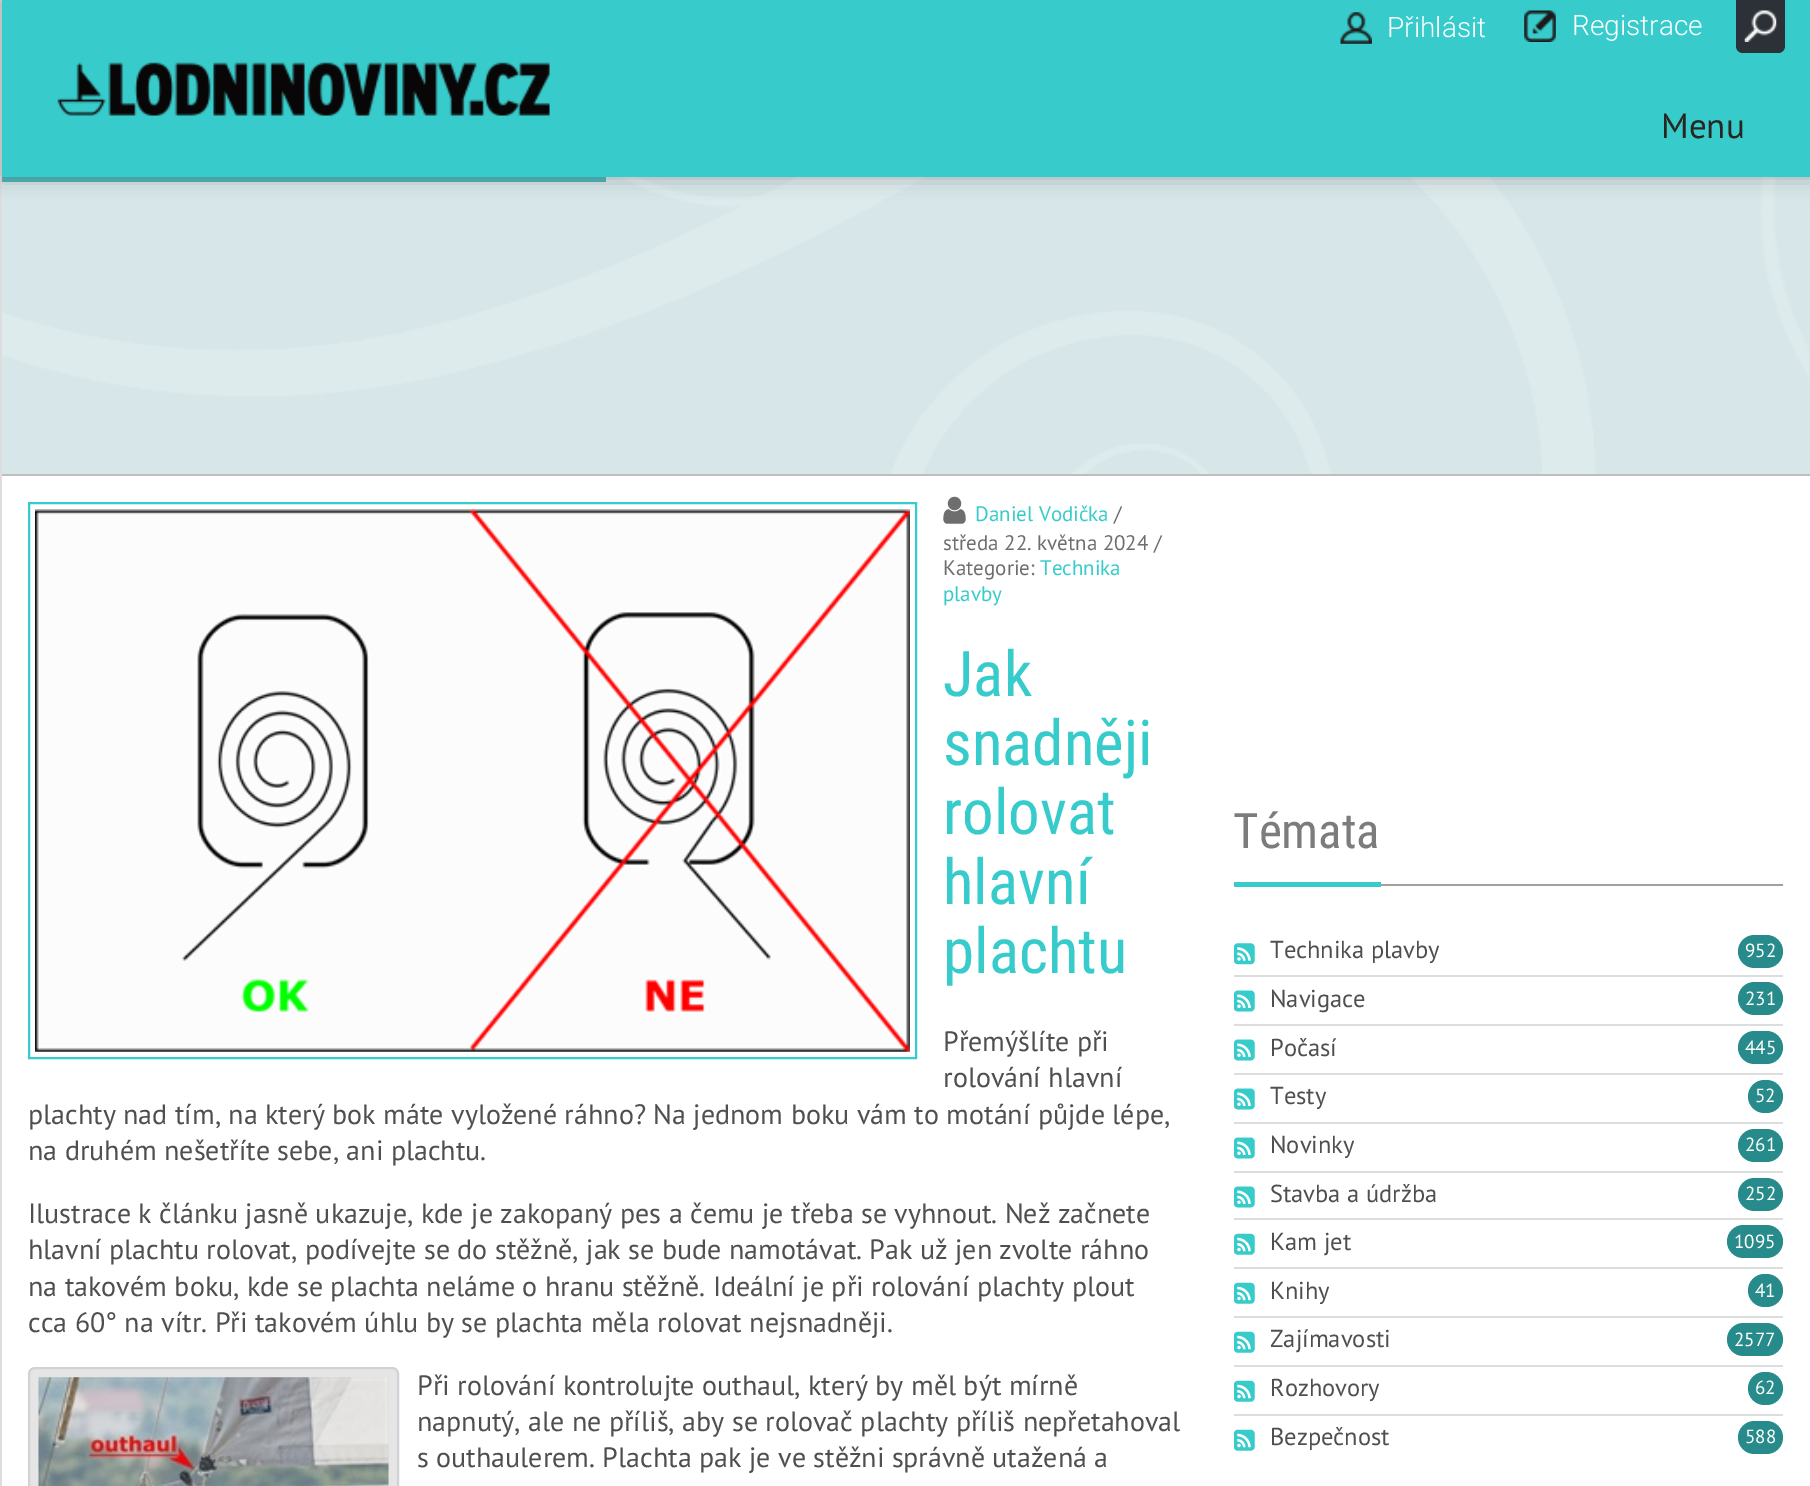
%!PS-Adobe-3.0
%%BoundingBox: 0 0 1810 1486
%%LanguageLevel: 3
%%Pages: 1
%%EndComments
%%BeginProlog
/m { moveto } bind def
/l { lineto } bind def
/c { curveto } bind def
/h { closepath } bind def
/f { fill } bind def
/S { stroke } bind def
/q { gsave } bind def
/Q { grestore } bind def
/w { setlinewidth } bind def
/fn { [ exch dup neg 0 0 3 -1 roll 0 0 ] selectfont } def
/tx { moveto show } def
/bx { rectfill } def
/al { dup .setfillconstantalpha .setstrokeconstantalpha } def
/rr { 5 dict begin { /r /h /w /y /x } { exch def } forall
  x r add y moveto x w add y 2 copy h add r arct x w add y h add x 1 index r arct
  x y h add x y r arct x y 2 copy exch w add exch r arct closepath end } def
/sh { 12 dict begin { /a /b /q /h /w /y /x } { exch def } forall gsave /was 0 def
  9 -2 -9 { dup b mul 4 div /e exch def 1 sub .425 mul 2.718 exch exp 1 add a .99 .min exch div /now exch def
    1 1 now sub 1 was sub div sub al /was now def
    w h .min e 2 mul add 0 gt { x e sub y e sub w e 2 mul add h e 2 mul add
      q e add b .6 mul add w h .min 2 div e add .min 0 .max rr fill } if } for grestore end } def
/im { 5 dict begin { /h /w /y /x /name } { exch def } forall
  gsave x y translate w h scale
  w h 8 [w 0 0 h 0 0] name (r) file false 3 colorimage grestore end } def
%%EndProlog
%%BeginSetup
<< /PageSize [1810 1486] /PageUsesTransparency true >> setpagedevice
%%EndSetup
%%Page: 1 1
0 .pushpdf14devicefilter
0 1486 translate 1 -1 scale
4 setmiterlimit
1 setgray
0 0 1810 1486 bx
0.867 setgray
0 0 2 1486 bx
0.839 0.902 0.914 setrgbcolor
2 177 1808 297 bx
(image4.raw) 2 177 1808 297 im
0 setgray
2 0 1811 177 0 10.5 0.25 sh
0.216 0.796 0.796 setrgbcolor
2 0 1808 177 bx
(image0.raw) 1340 12 32 32 im
/Roboto-Light 28 fn
1 setgray
(Přihlásit) 1387 37 tx
(image1.raw) 1524 10 32 32 im
(Registrace) 1572 35 tx
0.173 0.192 0.22 setrgbcolor
1736 0 m 1785 0 l 1785 46 l 1785 50 1782 53 1778 53 c 1743 53 l 1739 53 1736 50 1736 46 c h f
(image2.raw) 1744 10 33 32 im
(image3.raw) 57 62 493 54 im
0.77 al
0.149 0.596 0.596 setrgbcolor
2 177 604 5 bx
/PTSans-Regular 35 fn
1 al
0.153 0.149 0.129 setrgbcolor
(Menu) 1661 138 tx
0.745 setgray
2 474 1808 2 bx
0.216 0.796 0.796 setrgbcolor
2 w
29 503 887 555 rectstroke
(image5.raw) 35 509 875 543 im
(image6.raw) 943 496 23 28 im
/PTSans-Regular 21 fn
(Daniel Vodička) 975 521 tx
0.431 setgray
(/) 1114 521 tx
(středa 22. května 2024 /) 943 550 tx
(Kategorie:) 943 575 tx
0.216 0.796 0.796 setrgbcolor
(Technika) 1040 575 tx
(plavby) 943 601 tx
/RobotoCondensed-Regular 63 fn
(Jak) 943 696 tx
(snadněji) 943 765 tx
(rolovat) 943 834 tx
(hlavní) 943 904 tx
(plachtu) 943 973 tx
/PTSans-Regular 28 fn
0.314 0.306 0.306 setrgbcolor
(Přemýšlíte při) 943 1051 tx
(rolování hlavní) 943 1087 tx
(plachty nad tím, na který bok máte vyložené ráhno? Na jednom boku vám to motání půjde lépe,) 28 1124 tx
(na druhém nešetříte sebe, ani plachtu.) 28 1160 tx
(Ilustrace k článku jasně ukazuje, kde je zakopaný pes a čemu je třeba se vyhnout. Než začnete) 28 1223 tx
(hlavní plachtu rolovat, podívejte se do stěžně, jak se bude namotávat. Pak už jen zvolte ráhno) 28 1259 tx
(na takovém boku, kde se plachta neláme o hranu stěžně. Ideální je při rolování plachty plout) 28 1296 tx
(cca 60° na vítr. Při takovém úhlu by se plachta měla rolovat nejsnadněji.) 28 1332 tx
0.898 setgray
29 1368 369 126 6 rr q f Q
0.82 0.824 0.827 setrgbcolor
S
(image7.raw) 38 1377 351 109 im
0.314 0.306 0.306 setrgbcolor
(Při rolování kontrolujte outhaul, který by měl být mírně) 417 1395 tx
(napnutý, ale ne příliš, aby se rolovač plachty příliš nepřetahoval) 417 1431 tx
(s outhaulerem. Plachta pak je ve stěžni správně utažená a) 417 1467 tx
0.627 setgray
1381 884 402 2 bx
/RobotoCondensed-Regular 49 fn
0.486 setgray
(Témata) 1233 848 tx
0.216 0.796 0.796 setrgbcolor
1234 882 147 5 bx
0.867 setgray
1234 975 549 2 bx
(image8.raw) 1234 943 21 22 im
/PTSans-Regular 24.5 fn
0.314 0.306 0.306 setrgbcolor
(Technika plavby) 1270 958 tx
0.157 0.545 0.545 setrgbcolor
1738 935 45 33 16.5 rr f
/PTSans-Regular 19 fn
1 setgray
(952) 1745 957 tx
0.867 setgray
1234 1024 549 2 bx
(image9.raw) 1234 990 21 22 im
/PTSans-Regular 24.5 fn
0.314 0.306 0.306 setrgbcolor
(Navigace) 1270 1007 tx
0.157 0.545 0.545 setrgbcolor
1738 982 45 33 16.5 rr f
/PTSans-Regular 19 fn
1 setgray
(231) 1745 1005 tx
0.867 setgray
1234 1073 549 2 bx
(image9.raw) 1234 1039 21 22 im
/PTSans-Regular 24.5 fn
0.314 0.306 0.306 setrgbcolor
(Počasí) 1270 1056 tx
0.157 0.545 0.545 setrgbcolor
1738 1031 45 33 16.5 rr f
/PTSans-Regular 19 fn
1 setgray
(445) 1745 1054 tx
0.867 setgray
1234 1122 549 2 bx
(image9.raw) 1234 1088 21 22 im
/PTSans-Regular 24.5 fn
0.314 0.306 0.306 setrgbcolor
(Testy) 1270 1104 tx
0.157 0.545 0.545 setrgbcolor
1748 1080 35 33 16.5 rr f
/PTSans-Regular 19 fn
1 setgray
(52) 1755 1102 tx
0.867 setgray
1234 1171 549 2 bx
(image9.raw) 1234 1137 21 22 im
/PTSans-Regular 24.5 fn
0.314 0.306 0.306 setrgbcolor
(Novinky) 1270 1153 tx
0.157 0.545 0.545 setrgbcolor
1738 1129 45 33 16.5 rr f
/PTSans-Regular 19 fn
1 setgray
(261) 1745 1151 tx
0.867 setgray
1234 1218 549 2 bx
(image9.raw) 1234 1186 21 22 im
/PTSans-Regular 24.5 fn
0.314 0.306 0.306 setrgbcolor
(Stavba a údržba) 1270 1202 tx
0.157 0.545 0.545 setrgbcolor
1738 1178 45 33 16.5 rr f
/PTSans-Regular 19 fn
1 setgray
(252) 1745 1200 tx
0.867 setgray
1234 1267 549 2 bx
(image10.raw) 1234 1233 21 22 im
/PTSans-Regular 24.5 fn
0.314 0.306 0.306 setrgbcolor
(Kam jet) 1270 1250 tx
0.157 0.545 0.545 setrgbcolor
1727 1225 56 33 16.5 rr f
/PTSans-Regular 19 fn
1 setgray
(1095) 1734 1248 tx
0.867 setgray
1234 1316 549 2 bx
(image10.raw) 1234 1282 21 22 im
/PTSans-Regular 24.5 fn
0.314 0.306 0.306 setrgbcolor
(Knihy) 1270 1299 tx
0.157 0.545 0.545 setrgbcolor
1748 1274 35 33 16.5 rr f
/PTSans-Regular 19 fn
1 setgray
(41) 1755 1297 tx
0.867 setgray
1234 1365 549 2 bx
(image10.raw) 1234 1331 21 22 im
/PTSans-Regular 24.5 fn
0.314 0.306 0.306 setrgbcolor
(Zajímavosti) 1270 1347 tx
0.157 0.545 0.545 setrgbcolor
1727 1323 56 33 16.5 rr f
/PTSans-Regular 19 fn
1 setgray
(2577) 1734 1346 tx
0.867 setgray
1234 1414 549 2 bx
(image10.raw) 1234 1380 21 22 im
/PTSans-Regular 24.5 fn
0.314 0.306 0.306 setrgbcolor
(Rozhovory) 1270 1396 tx
0.157 0.545 0.545 setrgbcolor
1748 1372 35 33 16.5 rr f
/PTSans-Regular 19 fn
1 setgray
(62) 1755 1394 tx
(image10.raw) 1234 1429 21 22 im
/PTSans-Regular 24.5 fn
0.314 0.306 0.306 setrgbcolor
(Bezpečnost) 1270 1445 tx
0.157 0.545 0.545 setrgbcolor
1738 1421 45 33 16.5 rr f
/PTSans-Regular 19 fn
1 setgray
(588) 1745 1443 tx
.poppdf14devicefilter showpage
%%EOF
